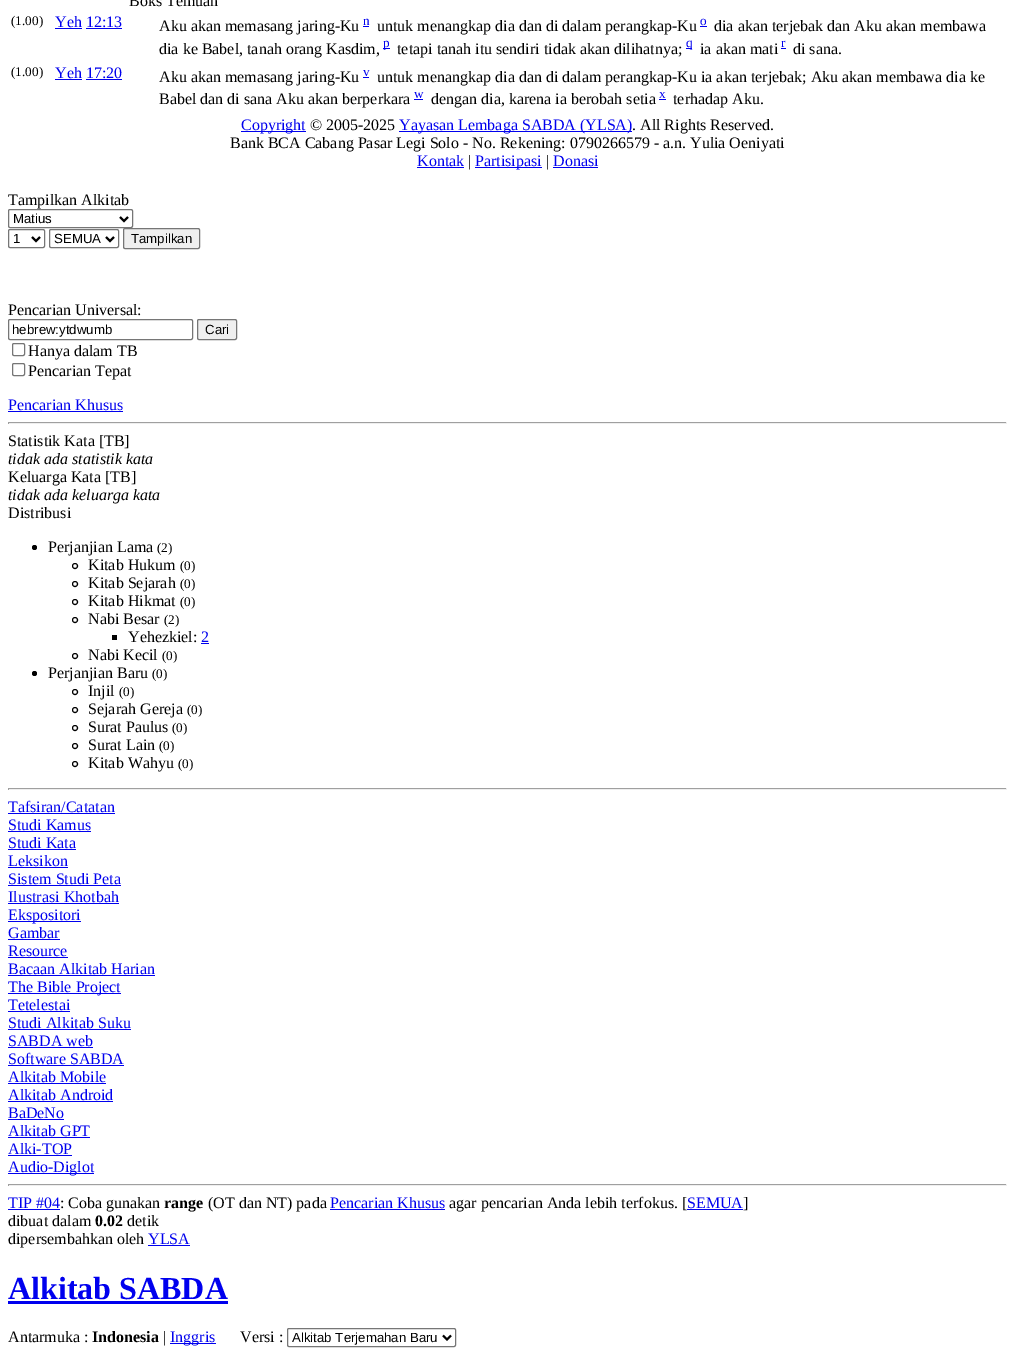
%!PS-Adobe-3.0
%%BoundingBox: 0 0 1015 1361
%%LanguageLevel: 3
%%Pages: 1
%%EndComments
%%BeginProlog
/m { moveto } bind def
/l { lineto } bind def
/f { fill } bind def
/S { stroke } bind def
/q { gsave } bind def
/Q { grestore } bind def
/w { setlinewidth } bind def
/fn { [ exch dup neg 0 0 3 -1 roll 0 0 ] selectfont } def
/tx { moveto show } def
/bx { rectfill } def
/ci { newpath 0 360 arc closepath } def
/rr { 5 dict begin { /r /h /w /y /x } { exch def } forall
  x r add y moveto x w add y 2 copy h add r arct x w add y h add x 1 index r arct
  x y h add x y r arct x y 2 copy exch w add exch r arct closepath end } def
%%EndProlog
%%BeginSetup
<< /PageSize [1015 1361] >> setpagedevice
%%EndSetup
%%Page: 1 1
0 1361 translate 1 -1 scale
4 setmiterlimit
1 setgray
0 0 1015 1361 bx
/LiberationSerif-Regular 16 fn
0 setgray
(Boks Temuan) 129 6 tx
/LiberationSerif-Regular 13.25 fn
(\(1.00\)) 11 25 tx
/LiberationSerif-Regular 16 fn
0 0 0.933 setrgbcolor
(Yeh 12:13) 55 27 tx
55 28 27 1 bx
86 28 36 1 bx
0 setgray
(Aku akan memasang jaring-Ku) 159 31 tx
/LiberationSerif-Regular 13.25 fn
0 0 0.933 setrgbcolor
(n) 363 25 tx
363 26 6 1 bx
/LiberationSerif-Regular 16 fn
0 setgray
(untuk menangkap dia dan di dalam perangkap-Ku) 377 31 tx
/LiberationSerif-Regular 13.25 fn
0 0 0.933 setrgbcolor
(o) 700 25 tx
700 26 7 1 bx
/LiberationSerif-Regular 16 fn
0 setgray
(dia akan terjebak dan Aku akan membawa) 714 31 tx
(dia ke Babel, tanah orang Kasdim,) 159 54 tx
0 0 0.933 setrgbcolor
383 48 7 1 bx
/LiberationSerif-Regular 13.25 fn
(p) 383 47 tx
/LiberationSerif-Regular 16 fn
0 setgray
(tetapi tanah itu sendiri tidak akan dilihatnya;) 397 54 tx
0 0 0.933 setrgbcolor
686 48 6 1 bx
/LiberationSerif-Regular 13.25 fn
(q) 686 47 tx
/LiberationSerif-Regular 16 fn
0 setgray
(ia akan mati) 700 54 tx
/LiberationSerif-Regular 13.25 fn
0 0 0.933 setrgbcolor
(r) 781 47 tx
781 48 5 1 bx
/LiberationSerif-Regular 16 fn
0 setgray
(di sana.) 793 54 tx
/LiberationSerif-Regular 13.25 fn
(\(1.00\)) 11 76 tx
/LiberationSerif-Regular 16 fn
0 0 0.933 setrgbcolor
(Yeh 17:20) 55 78 tx
55 79 27 1 bx
86 79 36 1 bx
0 setgray
(Aku akan memasang jaring-Ku) 159 82 tx
/LiberationSerif-Regular 13.25 fn
0 0 0.933 setrgbcolor
(v) 363 76 tx
363 77 6 1 bx
/LiberationSerif-Regular 16 fn
0 setgray
(untuk menangkap dia dan di dalam perangkap-Ku ia akan terjebak; Aku akan membawa dia ke) 377 82 tx
(Babel dan di sana Aku akan berperkara) 159 104 tx
/LiberationSerif-Regular 13.25 fn
0 0 0.933 setrgbcolor
(w) 414 98 tx
414 99 9 1 bx
/LiberationSerif-Regular 16 fn
0 setgray
(dengan dia, karena ia berobah setia) 431 104 tx
/LiberationSerif-Regular 13.25 fn
0 0 0.933 setrgbcolor
(x) 659 98 tx
659 99 7 1 bx
/LiberationSerif-Regular 16 fn
0 setgray
(terhadap Aku.) 673 104 tx
0 0 0.933 setrgbcolor
241 131 65 1 bx
(Copyright) 241 130 tx
0 setgray
(© 2005-2025) 310 130 tx
0 0 0.933 setrgbcolor
399 131 233 1 bx
(Yayasan Lembaga SABDA \(YLSA\)) 399 130 tx
0 setgray
(. All Rights Reserved.) 632 130 tx
(Bank BCA Cabang Pasar Legi Solo - No. Rekening: 0790266579 - a.n. Yulia Oeniyati) 230 148 tx
0 0 0.933 setrgbcolor
(Kontak) 417 166 tx
417 167 47 1 bx
0 setgray
(|) 468 166 tx
0 0 0.933 setrgbcolor
475 167 67 1 bx
(Partisipasi) 475 166 tx
0 setgray
(|) 546 166 tx
0 0 0.933 setrgbcolor
(Donasi) 553 166 tx
553 167 45 1 bx
0 setgray
(Tampilkan Alkitab) 8 205 tx
0.463 setgray
8.5 209.5 124 18 1.5 rr S
0 setgray
2 w
120 217 m 124 221 l 128 217 l S
/LiberationSans-Regular 13.25 fn
(Matius) 13 223 tx
0.463 setgray
1 w
8.5 229.5 36 18 1.5 rr S
0 setgray
2 w
32 237 m 36 241 l 40 237 l S
(1) 13 243 tx
0.463 setgray
1 w
49.5 229.5 69 18 1.5 rr S
0 setgray
2 w
106 237 m 110 241 l 114 237 l S
(SEMUA) 54 243 tx
0.937 setgray
123.5 228.5 76 20 1.5 rr q f Q
0.463 setgray
1 w
S
0 setgray
(Tampilkan) 131 243 tx
/LiberationSerif-Regular 16 fn
(Pencarian Universal:) 8 315 tx
0.463 setgray
8.5 319.5 184 20 1.5 rr S
/LiberationSans-Regular 13.25 fn
0 setgray
(hebrew:ytdwumb) 12 334 tx
0.937 setgray
197.5 319.5 39 20 1.5 rr q f Q
0.463 setgray
S
0 setgray
(Cari) 205 334 tx
0.463 setgray
12.5 343.5 12 12 1.5 rr S
/LiberationSerif-Regular 16 fn
0 setgray
(Hanya dalam TB) 28 356 tx
0.463 setgray
12.5 363.5 12 12 1.5 rr S
0 setgray
(Pencarian Tepat) 28 376 tx
0 0 0.933 setrgbcolor
(Pencarian Khusus) 8 410 tx
8 411 115 1 bx
0.624 setgray
8 422 999 1 bx
0.933 setgray
1006 422 1 2 bx
8 423 999 1 bx
0.624 setgray
8 422 1 2 bx
0 setgray
(Statistik Kata [TB]) 8 446 tx
/LiberationSerif-Italic 16 fn
(tidak ada statistik kata) 8 464 tx
/LiberationSerif-Regular 16 fn
(Keluarga Kata [TB]) 8 482 tx
/LiberationSerif-Italic 16 fn
(tidak ada keluarga kata) 8 500 tx
/LiberationSerif-Regular 16 fn
(Distribusi) 8 518 tx
34.5 547.5 2.5 ci f
(Perjanjian Lama) 48 552 tx
/LiberationSerif-Regular 13.25 fn
(\(2\)) 157 552 tx
75 566 2.5 ci S
/LiberationSerif-Regular 16 fn
(Kitab Hukum) 88 570 tx
/LiberationSerif-Regular 13.25 fn
(\(0\)) 180 570 tx
75 584 2.5 ci S
/LiberationSerif-Regular 16 fn
(Kitab Sejarah) 88 588 tx
/LiberationSerif-Regular 13.25 fn
(\(0\)) 180 588 tx
75 602 2.5 ci S
/LiberationSerif-Regular 16 fn
(Kitab Hikmat) 88 606 tx
/LiberationSerif-Regular 13.25 fn
(\(0\)) 180 606 tx
75 620 2.5 ci S
/LiberationSerif-Regular 16 fn
(Nabi Besar) 88 624 tx
/LiberationSerif-Regular 13.25 fn
(\(2\)) 164 624 tx
112 635 5 5 bx
/LiberationSerif-Regular 16 fn
(Yehezkiel:) 128 642 tx
0 0 0.933 setrgbcolor
(2) 201 642 tx
201 643 8 1 bx
0 setgray
75 656 2.5 ci S
(Nabi Kecil) 88 660 tx
/LiberationSerif-Regular 13.25 fn
(\(0\)) 162 660 tx
34.5 673.5 2.5 ci f
/LiberationSerif-Regular 16 fn
(Perjanjian Baru) 48 678 tx
/LiberationSerif-Regular 13.25 fn
(\(0\)) 152 678 tx
75 692 2.5 ci S
/LiberationSerif-Regular 16 fn
(Injil) 88 696 tx
/LiberationSerif-Regular 13.25 fn
(\(0\)) 119 696 tx
75 710 2.5 ci S
/LiberationSerif-Regular 16 fn
(Sejarah Gereja) 88 714 tx
/LiberationSerif-Regular 13.25 fn
(\(0\)) 187 714 tx
75 728 2.5 ci S
/LiberationSerif-Regular 16 fn
(Surat Paulus) 88 732 tx
/LiberationSerif-Regular 13.25 fn
(\(0\)) 172 732 tx
75 746 2.5 ci S
/LiberationSerif-Regular 16 fn
(Surat Lain) 88 750 tx
/LiberationSerif-Regular 13.25 fn
(\(0\)) 159 750 tx
75 764 2.5 ci S
/LiberationSerif-Regular 16 fn
(Kitab Wahyu) 88 768 tx
/LiberationSerif-Regular 13.25 fn
(\(0\)) 178 768 tx
0.624 setgray
8 788 999 1 bx
0.933 setgray
1006 788 1 2 bx
8 789 999 1 bx
0.624 setgray
8 788 1 2 bx
/LiberationSerif-Regular 16 fn
0 0 0.933 setrgbcolor
(Tafsiran/Catatan) 8 812 tx
8 813 107 1 bx
(Studi Kamus) 8 830 tx
8 831 83 1 bx
(Studi Kata) 8 848 tx
8 849 68 1 bx
(Leksikon) 8 866 tx
8 867 60 1 bx
(Sistem Studi Peta) 8 884 tx
8 885 113 1 bx
(Ilustrasi Khotbah) 8 902 tx
8 903 111 1 bx
8 921 73 1 bx
(Ekspositori) 8 920 tx
(Gambar) 8 938 tx
8 939 52 1 bx
(Resource) 8 956 tx
8 957 60 1 bx
(Bacaan Alkitab Harian) 8 974 tx
8 975 147 1 bx
8 993 113 1 bx
(The Bible Project) 8 992 tx
(Tetelestai) 8 1010 tx
8 1011 62 1 bx
(Studi Alkitab Suku) 8 1028 tx
8 1029 123 1 bx
(SABDA web) 8 1046 tx
8 1047 85 1 bx
(Software SABDA) 8 1064 tx
8 1065 116 1 bx
(Alkitab Mobile) 8 1082 tx
8 1083 98 1 bx
(Alkitab Android) 8 1100 tx
8 1101 105 1 bx
(BaDeNo) 8 1118 tx
8 1119 56 1 bx
(Alkitab GPT) 8 1136 tx
8 1137 82 1 bx
(Alki-TOP) 8 1154 tx
8 1155 64 1 bx
8 1173 86 1 bx
(Audio-Diglot) 8 1172 tx
0.624 setgray
8 1184 999 1 bx
0.933 setgray
1006 1184 1 2 bx
8 1185 999 1 bx
0.624 setgray
8 1184 1 2 bx
0 0 0.933 setrgbcolor
(TIP #04) 8 1208 tx
8 1209 52 1 bx
0 setgray
(: Coba gunakan) 60 1208 tx
/LiberationSerif-Bold 16 fn
(range) 164 1208 tx
/LiberationSerif-Regular 16 fn
(\(OT dan NT\) pada) 208 1208 tx
0 0 0.933 setrgbcolor
(Pencarian Khusus) 330 1208 tx
330 1209 115 1 bx
0 setgray
(agar pencarian Anda lebih terfokus. [) 449 1208 tx
0 0 0.933 setrgbcolor
(SEMUA) 687 1208 tx
687 1209 56 1 bx
0 setgray
(]) 743 1208 tx
(dibuat dalam) 8 1226 tx
/LiberationSerif-Bold 16 fn
(0.02) 95 1226 tx
/LiberationSerif-Regular 16 fn
(detik) 127 1226 tx
(dipersembahkan oleh) 8 1244 tx
0 0 0.933 setrgbcolor
(YLSA) 148 1244 tx
148 1245 42 1 bx
/LiberationSerif-Bold 32 fn
(Alkitab SABDA) 8 1299 tx
8 1301 220 3 bx
/LiberationSerif-Regular 16 fn
0 setgray
(Antarmuka :) 8 1342 tx
/LiberationSerif-Bold 16 fn
(Indonesia) 92 1342 tx
/LiberationSerif-Regular 16 fn
(|) 163 1342 tx
0 0 0.933 setrgbcolor
170 1343 46 1 bx
(Inggris) 170 1342 tx
0 setgray
(Versi :) 240 1342 tx
0.463 setgray
287.5 1328.5 168 18 1.5 rr S
0 setgray
2 w
443 1335.5 m 447 1339.5 l 451 1335.5 l S
/LiberationSans-Regular 13.25 fn
(Alkitab Terjemahan Baru) 292 1342 tx
showpage
%%EOF
